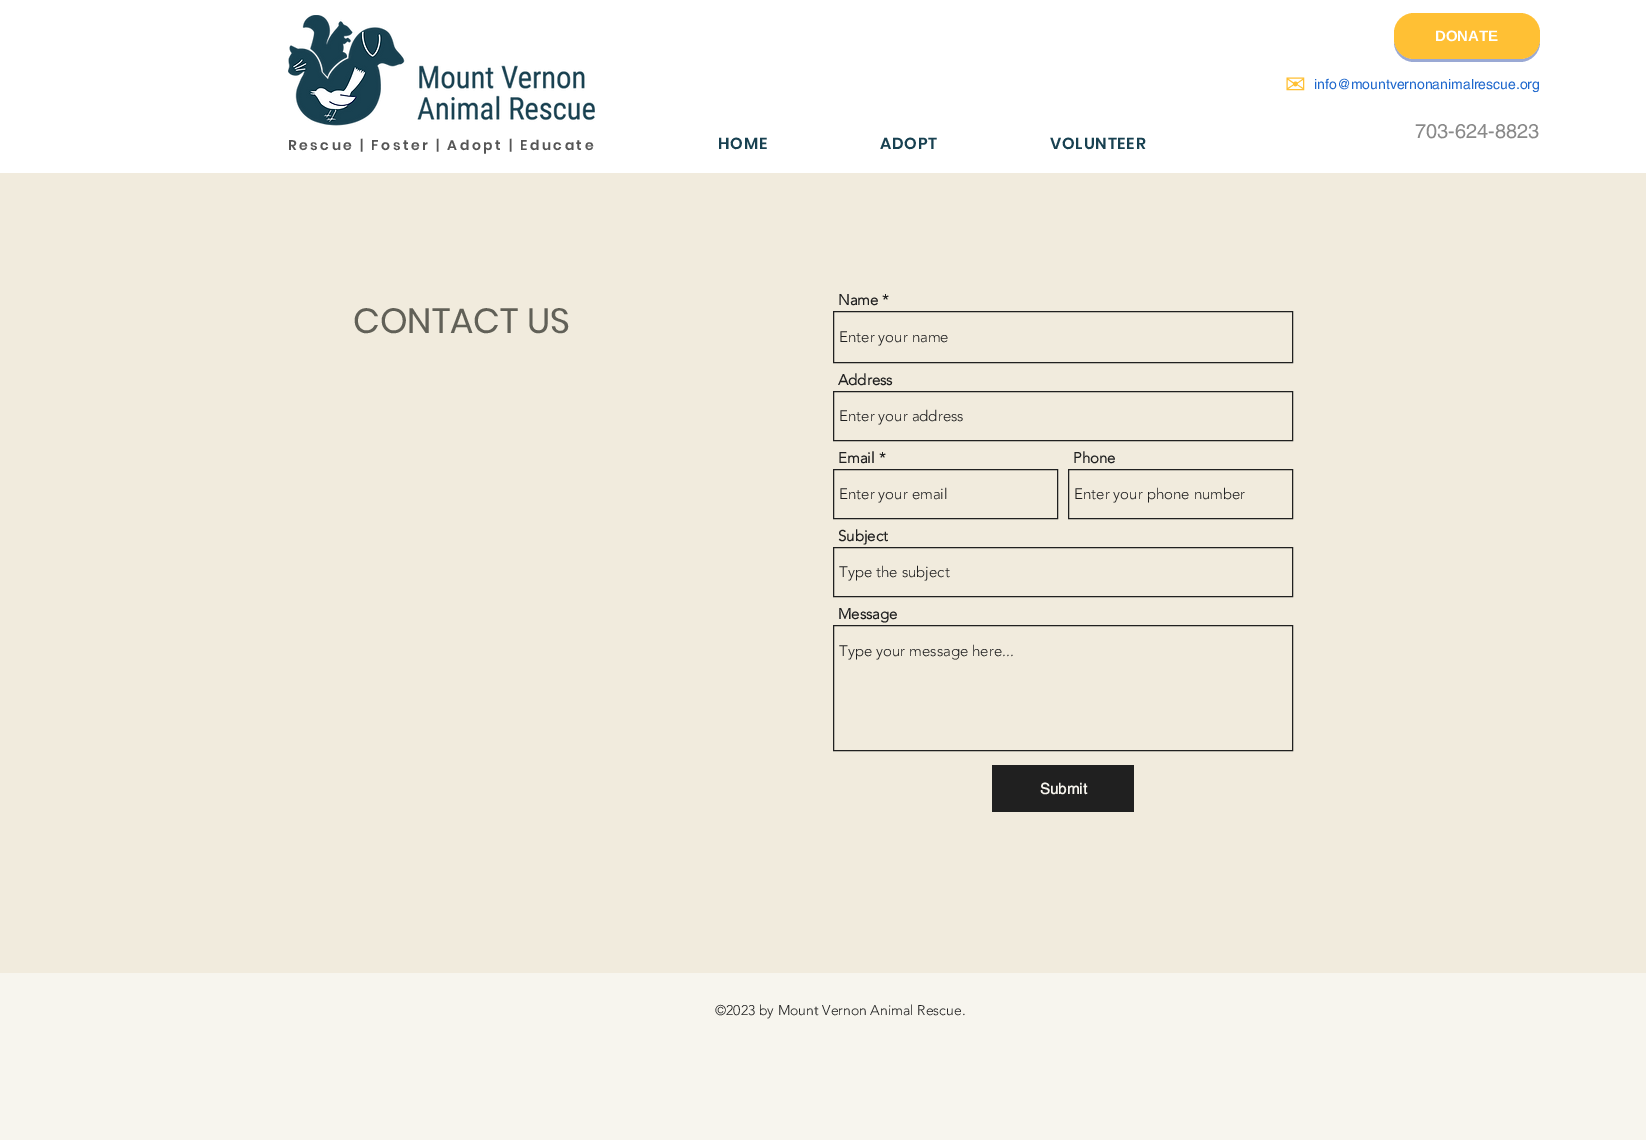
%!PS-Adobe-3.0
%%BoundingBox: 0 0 1646 1140
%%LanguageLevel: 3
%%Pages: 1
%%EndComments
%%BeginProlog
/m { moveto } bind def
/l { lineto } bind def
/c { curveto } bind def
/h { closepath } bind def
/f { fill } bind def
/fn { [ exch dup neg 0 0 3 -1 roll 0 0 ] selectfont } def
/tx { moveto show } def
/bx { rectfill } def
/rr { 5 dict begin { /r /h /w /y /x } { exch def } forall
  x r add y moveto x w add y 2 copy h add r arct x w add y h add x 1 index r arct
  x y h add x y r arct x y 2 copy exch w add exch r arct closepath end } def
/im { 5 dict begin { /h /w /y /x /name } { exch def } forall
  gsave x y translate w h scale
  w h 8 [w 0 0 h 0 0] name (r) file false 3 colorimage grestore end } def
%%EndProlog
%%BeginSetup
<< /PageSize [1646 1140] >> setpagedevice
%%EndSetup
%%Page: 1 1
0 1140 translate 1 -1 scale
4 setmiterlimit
0.969 0.961 0.933 setrgbcolor
0 0 1646 1140 bx
1 setgray
0 0 1646 173 bx
0.604 0.663 0.831 setrgbcolor
1394 39 m 1394 42 l 1394 53 1403 62 1414 62 c 1520 62 l 1531 62 1540 53 1540 42 c 1540 39 l 1540 50 1531 59 1520 59 c 1414 59 l 1403 59 1394 50 1394 39 c h f
1 0.753 0.204 setrgbcolor
1394 13 146 46 20 rr f
/LiberationSans-Bold 15 fn
1 setgray
(DONATE) 1435 41 tx
/DejaVuSans-Regular 25 fn
1 0.753 0.204 setrgbcolor
(✉) 1285 93 tx
/helvetica-Regular 14 fn
0.114 0.404 0.804 setrgbcolor
(info@mountvernonanimalrescue.org) 1314 89 tx
/helvetica-Regular 20 fn
0.537 setgray
(703-624-8823) 1415 138 tx
(image0.raw) 288 15 307 111 im
/Poppins-SemiBold 14 fn
0.333 setgray
288 150 m 2.5 0 (Rescue | Foster | Adopt | Educate) ashow
/Poppins-SemiBold 16 fn
0.094 0.255 0.318 setrgbcolor
718 149 m 0.75 0 (HOME) ashow
880 149 m 0.75 0 (ADOPT) ashow
1050 149 m 0.75 0 (VOLUNTEER) ashow
0.945 0.922 0.867 setrgbcolor
0 173 1646 800 bx
/Poppins-Regular 35 fn
0.38 0.376 0.341 setrgbcolor
(CONTACT US) 353 333 tx
/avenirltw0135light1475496-Bold 15 fn
0.125 setgray
(Name *) 838 305 tx
833.5 311.5 459 51 rectstroke
/avenirltw0135light1475496-Light 15 fn
(Enter your name) 839 342 tx
/avenirltw0135light1475496-Bold 15 fn
(Address) 838 385 tx
833.5 391.5 459 49 rectstroke
/avenirltw0135light1475496-Light 15 fn
(Enter your address) 839 421 tx
/avenirltw0135light1475496-Bold 15 fn
(Email *) 838 463 tx
833.5 469.5 224 49 rectstroke
/avenirltw0135light1475496-Light 15 fn
(Enter your email) 839 499 tx
/avenirltw0135light1475496-Bold 15 fn
(Phone) 1073 463 tx
1068.5 469.5 224 49 rectstroke
/avenirltw0135light1475496-Light 15 fn
(Enter your phone number) 1074 499 tx
/avenirltw0135light1475496-Bold 15 fn
(Subject) 838 541 tx
833.5 547.5 459 49 rectstroke
/avenirltw0135light1475496-Light 15 fn
(Type the subject) 839 577 tx
/avenirltw0135light1475496-Bold 15 fn
(Message) 838 619 tx
833.5 625.5 459 125 rectstroke
/avenirltw0135light1475496-Light 15 fn
(Type your message here...) 839 656 tx
992 765 142 47 bx
/helvetica-Bold 15 fn
0.969 0.961 0.933 setrgbcolor
(Submit) 1040 794 tx
/avenirltw0135light1475496-Light 14 fn
0.125 setgray
(©2023 by Mount Vernon Animal Rescue.) 715 1015 tx
showpage
%%EOF
